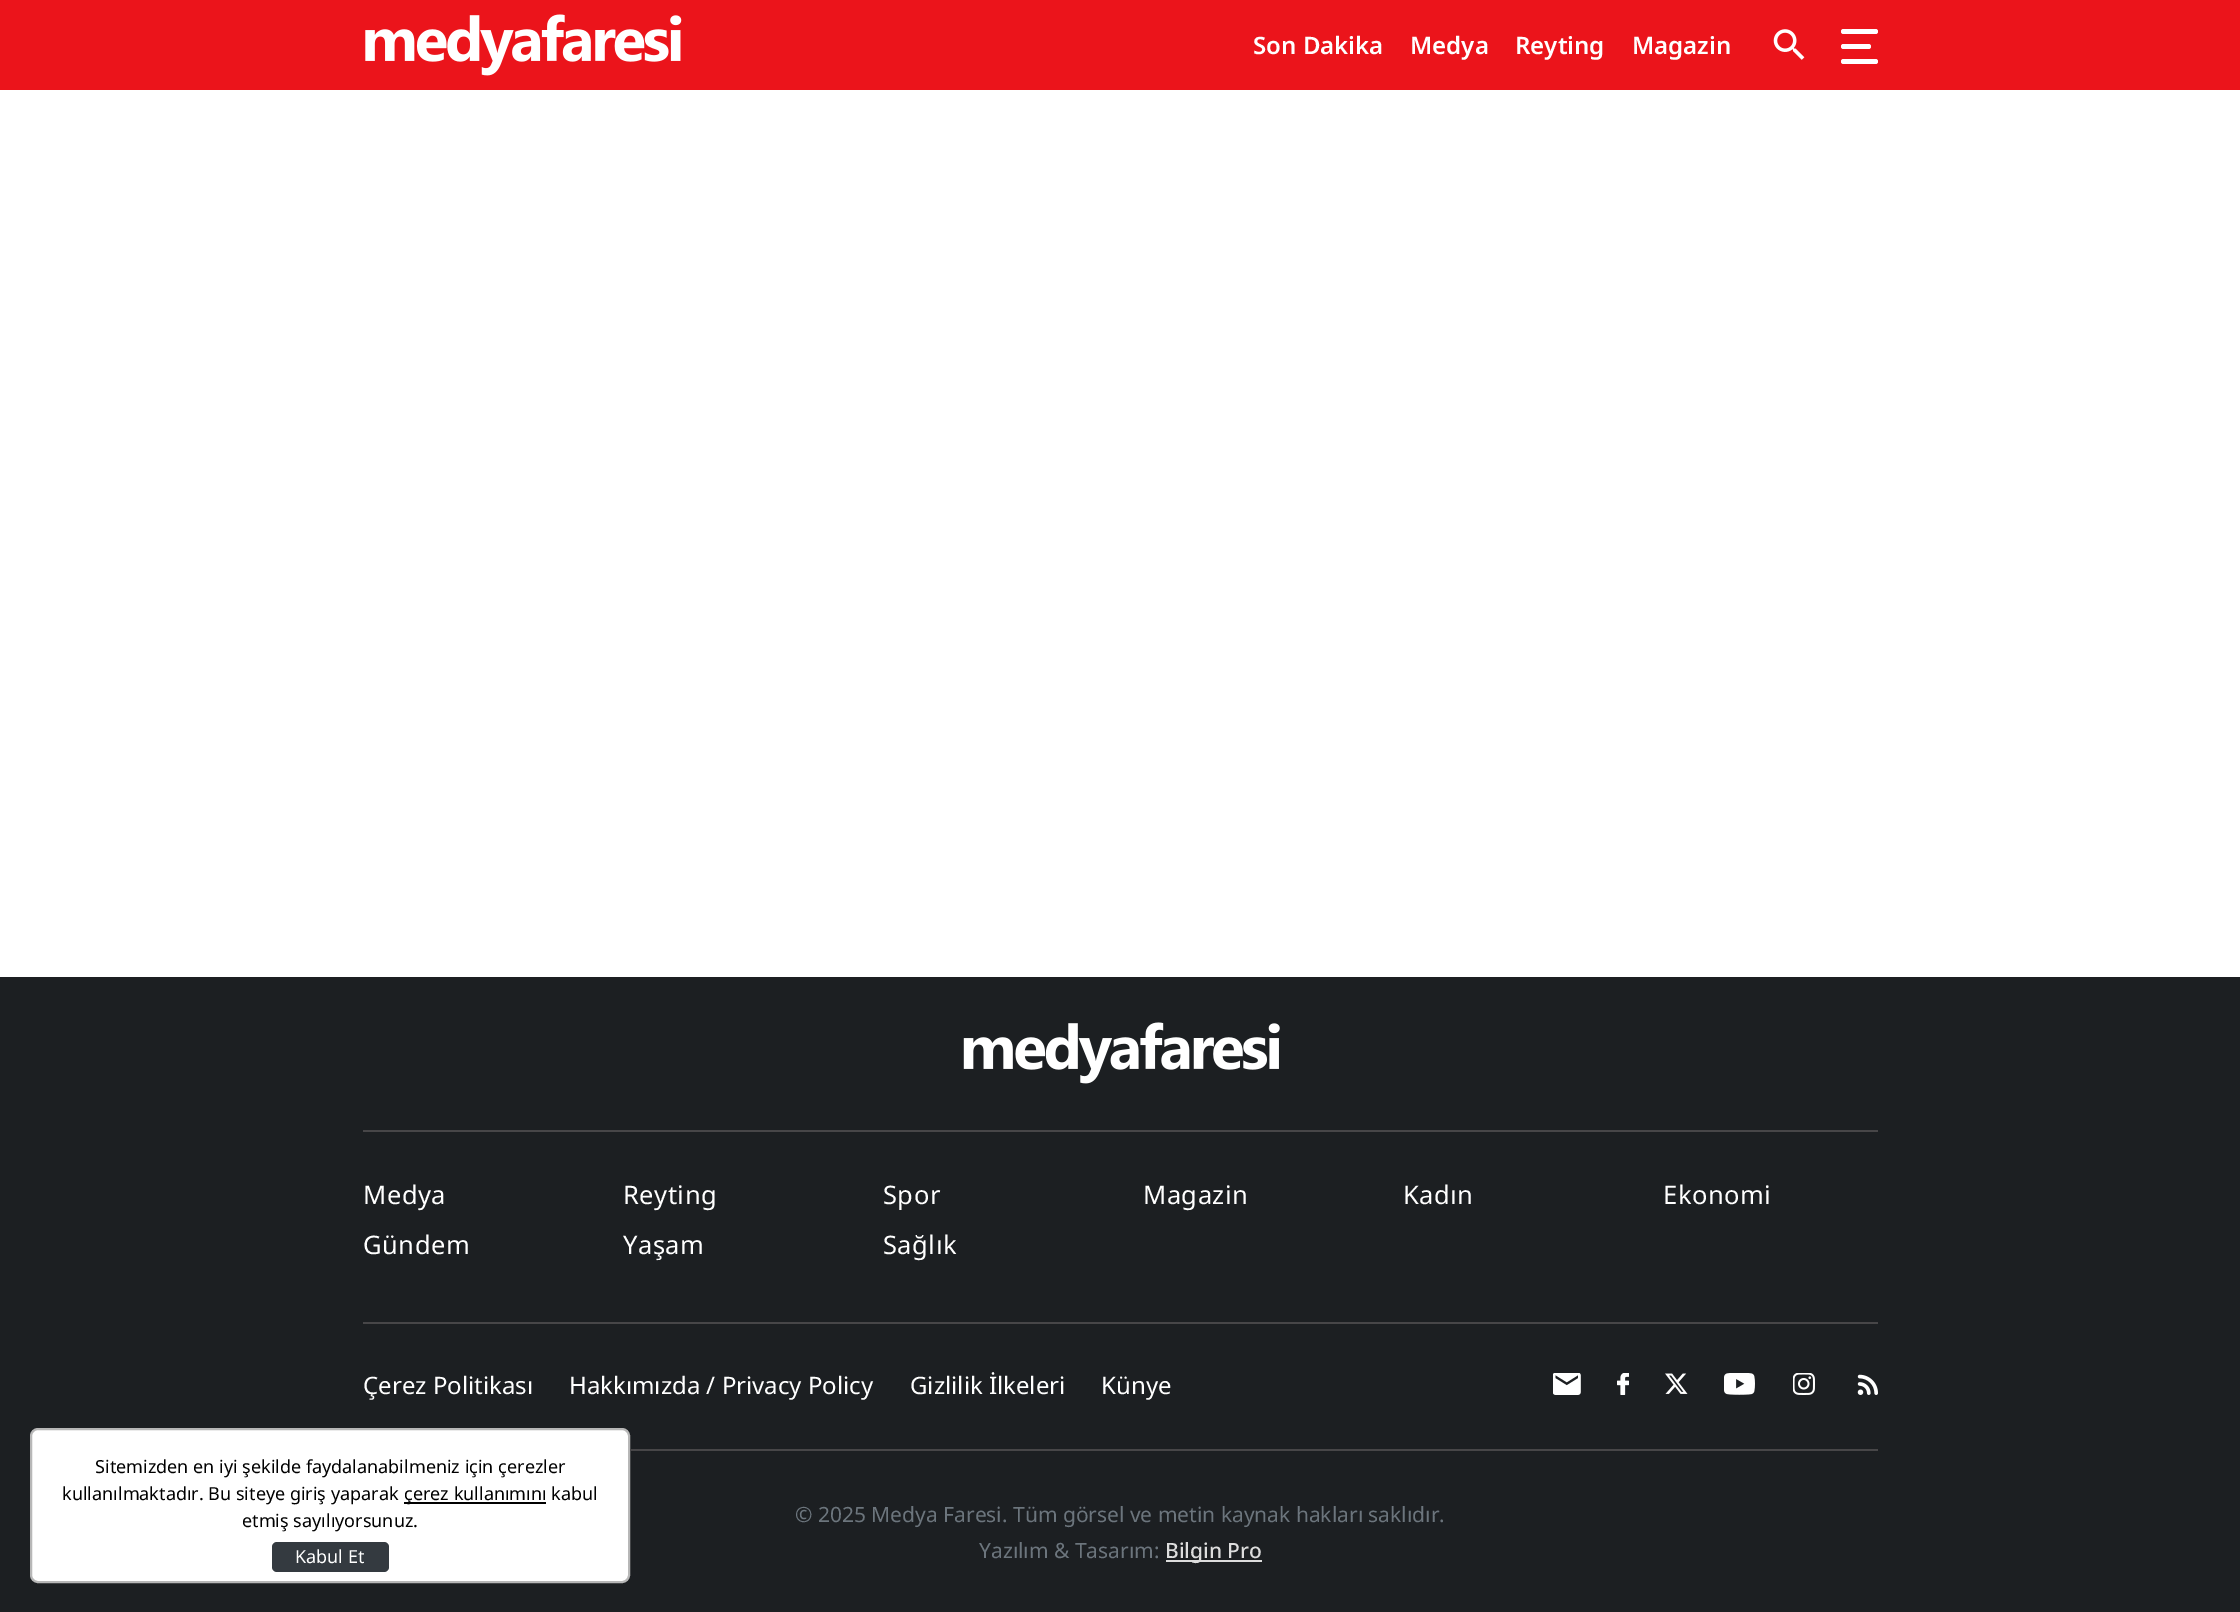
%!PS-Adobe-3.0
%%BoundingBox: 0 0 2240 1612
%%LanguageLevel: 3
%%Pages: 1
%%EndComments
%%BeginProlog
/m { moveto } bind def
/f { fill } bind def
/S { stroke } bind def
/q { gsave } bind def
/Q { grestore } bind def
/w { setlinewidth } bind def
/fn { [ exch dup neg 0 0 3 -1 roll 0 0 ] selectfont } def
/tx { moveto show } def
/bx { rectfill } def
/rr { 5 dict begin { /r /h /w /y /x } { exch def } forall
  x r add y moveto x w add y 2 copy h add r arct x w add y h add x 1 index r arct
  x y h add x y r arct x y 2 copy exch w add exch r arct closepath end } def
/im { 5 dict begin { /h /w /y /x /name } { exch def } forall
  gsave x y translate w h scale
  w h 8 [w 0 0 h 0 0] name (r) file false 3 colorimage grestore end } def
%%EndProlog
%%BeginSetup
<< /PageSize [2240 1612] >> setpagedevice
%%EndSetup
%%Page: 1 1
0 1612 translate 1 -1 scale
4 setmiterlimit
1 setgray
0 0 2240 1612 bx
0.922 0.078 0.106 setrgbcolor
0 0 2240 90 bx
(image0.raw) 365 14 317 62 im
/NotoSans-SemiBold 24 fn
1 setgray
(Son Dakika) 1253 54 tx
(Medya) 1410 54 tx
(Reyting) 1515 54 tx
(Magazin) 1632 54 tx
(image1.raw) 1773 29 32 31 im
1841 44 30 5 2.5 rr f
1841 29 37 5 2.5 rr f
1841 59 37 5 2.5 rr f
0.11 0.122 0.133 setrgbcolor
0 977 2240 635 bx
1 setgray
31 1429 598 153 7 rr q f Q
0.718 setgray
2 w
S
/NotoSans-Regular 18 fn
0 setgray
(Sitemizden en iyi şekilde faydalanabilmeniz için çerezler) 95 1473 tx
(kullanılmaktadır. Bu siteye giriş yaparak) 62 1500 tx
404 1502 142 2 bx
(çerez kullanımını kabul) 404 1500 tx
(etmiş sayılıyorsunuz.) 242 1527 tx
0.204 0.227 0.251 setrgbcolor
272 1542 117 30 5 rr f
1 setgray
(Kabul Et) 295 1563 tx
(image2.raw) 963 1022 317 62 im
0.278 0.275 0.282 setrgbcolor
363 1130 1515 2 bx
/NotoSans-Regular 25.5 fn
1 setgray
363 1204 m 0.5 0 (Medya) ashow
623 1204 m 0.5 0 (Reyting) ashow
883 1204 m 0.5 0 (Spor) ashow
1143 1204 m 0.5 0 (Magazin) ashow
1403 1204 m 0.5 0 (Kadın) ashow
1663 1204 m 0.5 0 (Ekonomi) ashow
363 1254 m 0.5 0 (Gündem) ashow
623 1254 m 0.5 0 (Yaşam) ashow
883 1254 m 0.5 0 (Sağlık) ashow
0.278 0.275 0.282 setrgbcolor
363 1322 1515 2 bx
/NotoSans-Regular 24 fn
1 setgray
(Çerez Politikası) 363 1394 tx
(Hakkımızda / Privacy Policy) 569 1394 tx
(Gizlilik İlkeleri) 910 1394 tx
(Künye) 1101 1394 tx
(image3.raw) 1553 1373 28 22 im
(image4.raw) 1617 1373 12 22 im
(image5.raw) 1665 1373 23 21 im
(image6.raw) 1724 1373 31 22 im
(image7.raw) 1793 1373 22 22 im
(image8.raw) 1857 1374 21 21 im
0.278 0.275 0.282 setrgbcolor
630 1449 1248 2 bx
/NotoSans-Regular 21 fn
0.424 0.459 0.49 setrgbcolor
(© 2025 Medya Faresi. Tüm görsel ve metin kaynak hakları saklıdır.) 795 1522 tx
(Yazılım & Tasarım:) 979 1558 tx
0.867 setgray
1166 1560 96 2 bx
/NotoSans-Medium 21 fn
(Bilgin Pro) 1165 1558 tx
showpage
%%EOF
